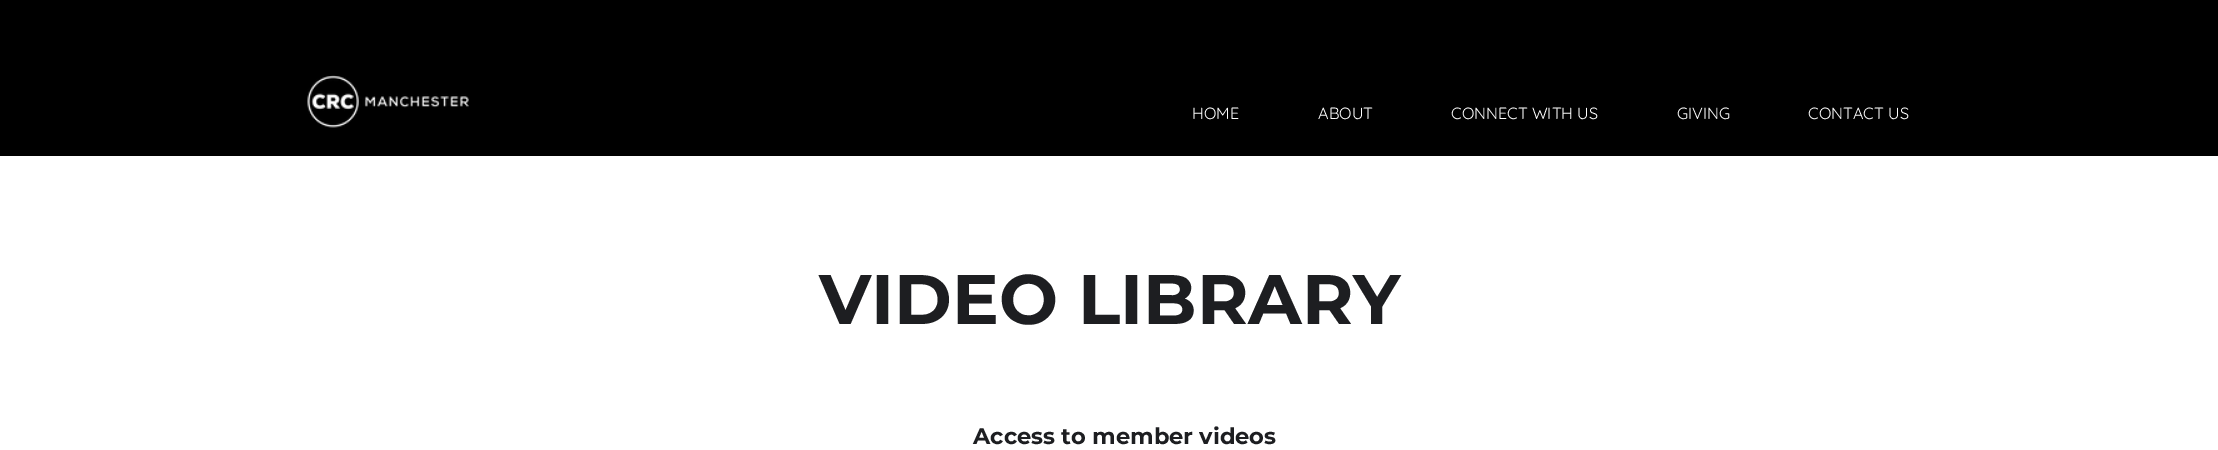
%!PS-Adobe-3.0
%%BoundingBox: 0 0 2218 450
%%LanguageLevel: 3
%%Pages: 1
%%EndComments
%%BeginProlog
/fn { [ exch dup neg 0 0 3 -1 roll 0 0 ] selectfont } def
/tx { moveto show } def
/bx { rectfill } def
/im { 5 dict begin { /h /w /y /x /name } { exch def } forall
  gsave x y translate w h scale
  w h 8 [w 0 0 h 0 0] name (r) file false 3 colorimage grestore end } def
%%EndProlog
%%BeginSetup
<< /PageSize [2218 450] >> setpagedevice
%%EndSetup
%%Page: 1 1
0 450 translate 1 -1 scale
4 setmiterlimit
1 setgray
0 0 2218 450 bx
0 setgray
0 0 2218 156 bx
(image0.raw) 307 75 162 53 im
/Quicksand-Regular 16.25 fn
1 setgray
(HOME) 1192 119 tx
(ABOUT) 1318 119 tx
(CONNECT WITH US) 1451 119 tx
(GIVING) 1677 119 tx
(CONTACT US) 1808 119 tx
/Montserrat-Bold 70 fn
0.114 0.118 0.129 setrgbcolor
(VIDEO LIBRARY) 819 324 tx
/Montserrat-Bold 22.5 fn
(Access to member videos) 973 444 tx
showpage
%%EOF
